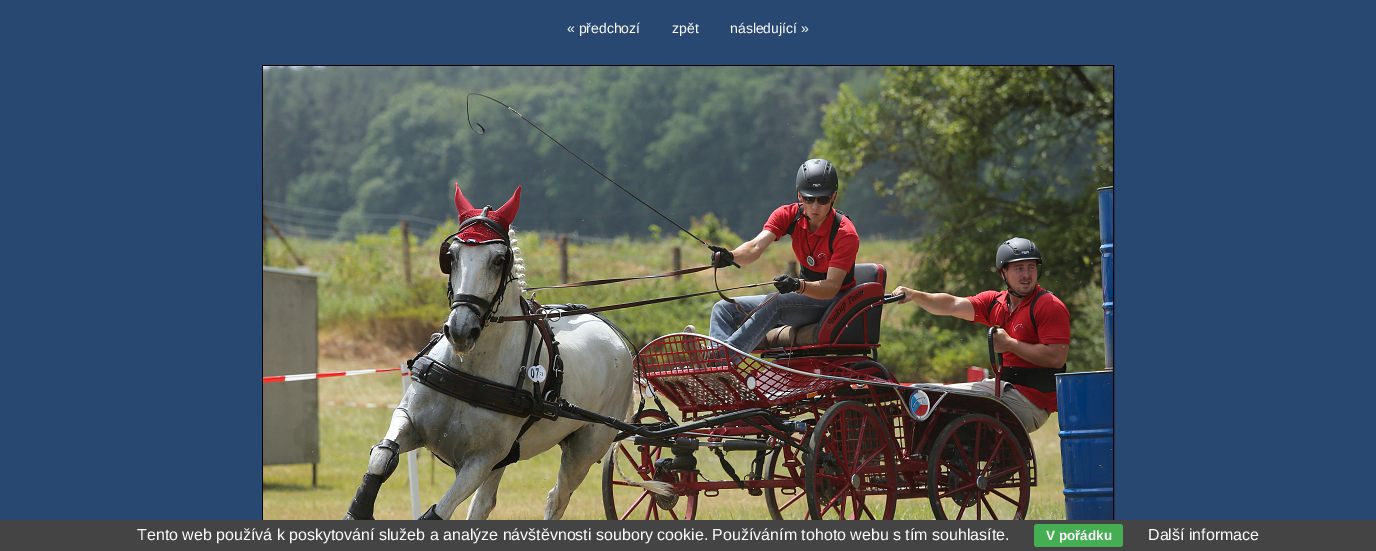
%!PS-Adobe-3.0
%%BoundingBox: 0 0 1376 551
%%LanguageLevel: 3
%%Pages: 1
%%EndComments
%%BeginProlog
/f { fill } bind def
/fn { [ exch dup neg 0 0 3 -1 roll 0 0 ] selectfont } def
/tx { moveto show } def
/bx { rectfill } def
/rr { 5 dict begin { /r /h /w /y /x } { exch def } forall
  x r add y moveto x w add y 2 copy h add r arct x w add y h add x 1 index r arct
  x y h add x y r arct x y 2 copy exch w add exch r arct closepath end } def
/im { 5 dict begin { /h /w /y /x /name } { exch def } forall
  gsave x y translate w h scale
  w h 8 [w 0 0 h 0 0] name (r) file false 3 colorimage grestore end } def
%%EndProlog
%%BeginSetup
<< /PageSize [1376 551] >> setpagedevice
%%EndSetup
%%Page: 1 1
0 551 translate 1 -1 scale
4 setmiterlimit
0.157 0.278 0.443 setrgbcolor
0 0 1376 551 bx
/LiberationSans-Regular 14 fn
1 setgray
(« předchozí) 567 33 tx
(zpět) 672 33 tx
(následující ») 730 33 tx
0 setgray
262.5 65.5 851 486 rectstroke
(image0.raw) 263 66 850 454 im
0.267 setgray
0 520 1376 31 bx
/LiberationSans-Regular 16 fn
1 setgray
(Tento web používá k poskytování služeb a analýze návštěvnosti soubory cookie. Používáním tohoto webu s tím souhlasíte.) 137 540 tx
0.271 0.682 0.322 setrgbcolor
1034 524 89 23 3 rr f
/LiberationSans-Bold 13.5 fn
1 setgray
(V pořádku) 1046 540 tx
/LiberationSans-Regular 16 fn
(Další informace) 1148 540 tx
showpage
%%EOF
